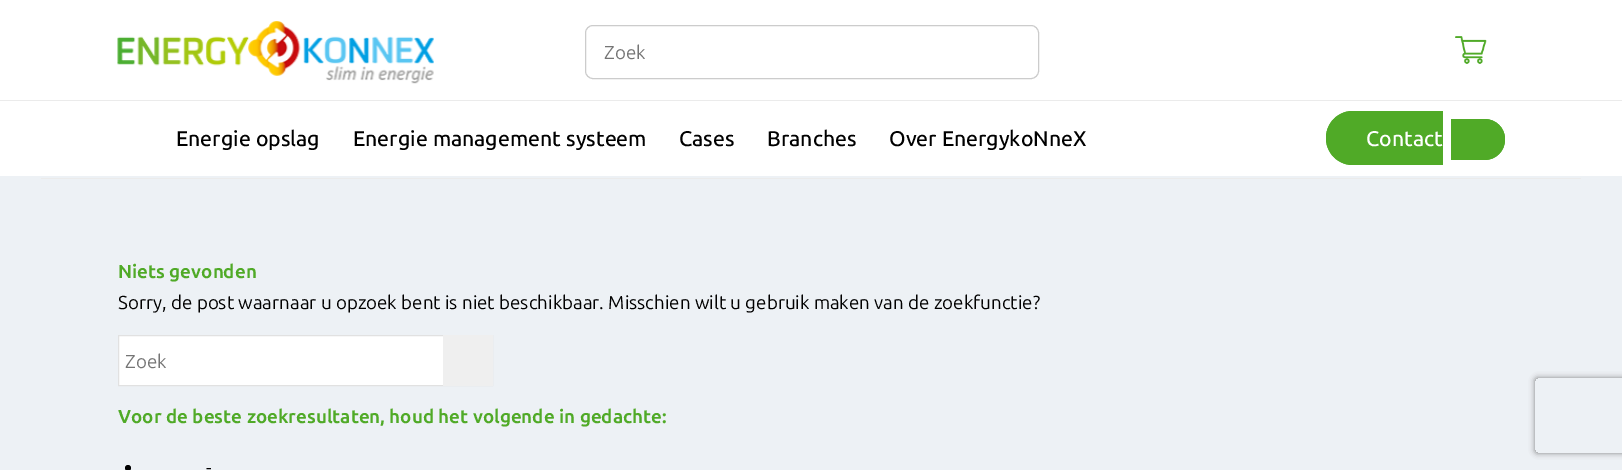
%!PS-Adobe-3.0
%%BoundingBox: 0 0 1622 470
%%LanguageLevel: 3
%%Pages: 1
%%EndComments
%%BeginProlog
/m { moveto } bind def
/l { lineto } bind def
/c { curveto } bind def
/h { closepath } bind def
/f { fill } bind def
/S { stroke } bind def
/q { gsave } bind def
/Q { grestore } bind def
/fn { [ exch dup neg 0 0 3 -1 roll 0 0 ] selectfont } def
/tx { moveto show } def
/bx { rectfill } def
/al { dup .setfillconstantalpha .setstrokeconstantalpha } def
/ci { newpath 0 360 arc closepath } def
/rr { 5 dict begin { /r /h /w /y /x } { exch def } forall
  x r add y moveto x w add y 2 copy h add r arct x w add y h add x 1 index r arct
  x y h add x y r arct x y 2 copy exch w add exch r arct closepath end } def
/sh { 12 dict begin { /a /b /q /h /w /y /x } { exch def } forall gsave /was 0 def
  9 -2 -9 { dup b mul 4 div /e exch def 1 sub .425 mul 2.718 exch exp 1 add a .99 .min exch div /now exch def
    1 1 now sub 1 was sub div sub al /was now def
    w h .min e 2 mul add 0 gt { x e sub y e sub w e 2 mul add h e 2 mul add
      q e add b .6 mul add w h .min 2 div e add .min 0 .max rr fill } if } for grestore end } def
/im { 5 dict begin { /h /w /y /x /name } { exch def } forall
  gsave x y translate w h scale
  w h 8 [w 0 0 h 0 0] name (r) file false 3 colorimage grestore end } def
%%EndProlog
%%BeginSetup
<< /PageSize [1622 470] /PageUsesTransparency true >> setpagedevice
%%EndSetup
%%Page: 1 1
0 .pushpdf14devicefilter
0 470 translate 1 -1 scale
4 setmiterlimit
0.929 0.945 0.961 setrgbcolor
0 0 1622 470 bx
1 setgray
0 0 1622 176 bx
(image0.raw) 117 21 317 63 im
0.8 setgray
585.5 25.5 453 53 7.5 rr S
/Ubuntu-Regular 18.75 fn
0.459 setgray
(Zoek) 604 59 tx
(image1.raw) 1455 36 32 28 im
0.922 setgray
0 100 1622 1 bx
/Ubuntu-Medium 21.25 fn
0 setgray
(Energie opslag) 176 146 tx
(Energie management systeem) 353 146 tx
(Cases) 679 146 tx
(Branches) 767 146 tx
(Over EnergykoNneX) 889 146 tx
0.314 0.667 0.153 setrgbcolor
1353 111 m 1443 111 l 1443 165 l 1353 165 l 1338 165 1326 153 1326 138 c 1326 123 1338 111 1353 111 c h f
1353 111 m 1442 111 l 1442 165 l 1353 165 l 1338 165 1326 153 1326 138 c 1326 123 1338 111 1353 111 c h 1353 114 m 1442 114 l 1442 162 l 1353 162 l 1340 162 1329 152 1329 138 c 1329 125 1340 114 1353 114 c h eofill
1 setgray
(Contact) 1366 146 tx
0.314 0.667 0.153 setrgbcolor
1451 119 m 1484.5 119 l 1496 119 1505 128 1505 139.5 c 1505 151 1496 160 1484.5 160 c 1451 160 l h f
1451 119 m 1484 119 l 1496 119 1505 128 1505 139 c 1505 151 1496 160 1484 160 c 1451 160 l h 1451 121 m 1484 121 l 1494 121 1502 129 1502 139 c 1502 149 1494 158 1484 158 c 1451 158 l h eofill
0.922 setgray
41 178 1540 1 bx
/Ubuntu-Bold 18.75 fn
0.314 0.667 0.153 setrgbcolor
(Niets gevonden) 118 278 tx
/Ubuntu-Regular 18.75 fn
0 setgray
(Sorry, de post waarnaar u opzoek bent is niet beschikbaar. Misschien wilt u gebruik maken van de zoekfunctie?) 118 309 tx
1 setgray
119 336 324 49 bx
0.882 setgray
118.5 335.5 374 50 rectstroke
0.459 setgray
(Zoek) 125 368 tx
0.937 setgray
443 335 50 51 bx
/Ubuntu-Bold 18.75 fn
0.314 0.667 0.153 setrgbcolor
(Voor de beste zoekresultaten, houd het volgende in gedachte:) 118 423 tx
0 setgray
128 468 3 ci f
/Ubuntu-Regular 18.75 fn
(-) 206 474 tx
q
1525 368 m 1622 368 l 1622 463 l 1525 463 l h 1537.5 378 m 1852.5 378 l 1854 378 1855 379 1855 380.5 c 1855 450.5 l 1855 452 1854 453 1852.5 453 c 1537.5 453 l 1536 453 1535 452 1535 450.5 c 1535 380.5 l 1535 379 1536 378 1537.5 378 c h eoclip newpath
0.502 setgray
1535 378 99 75 2.5 3 1 sh
Q
.poppdf14devicefilter showpage
%%EOF
